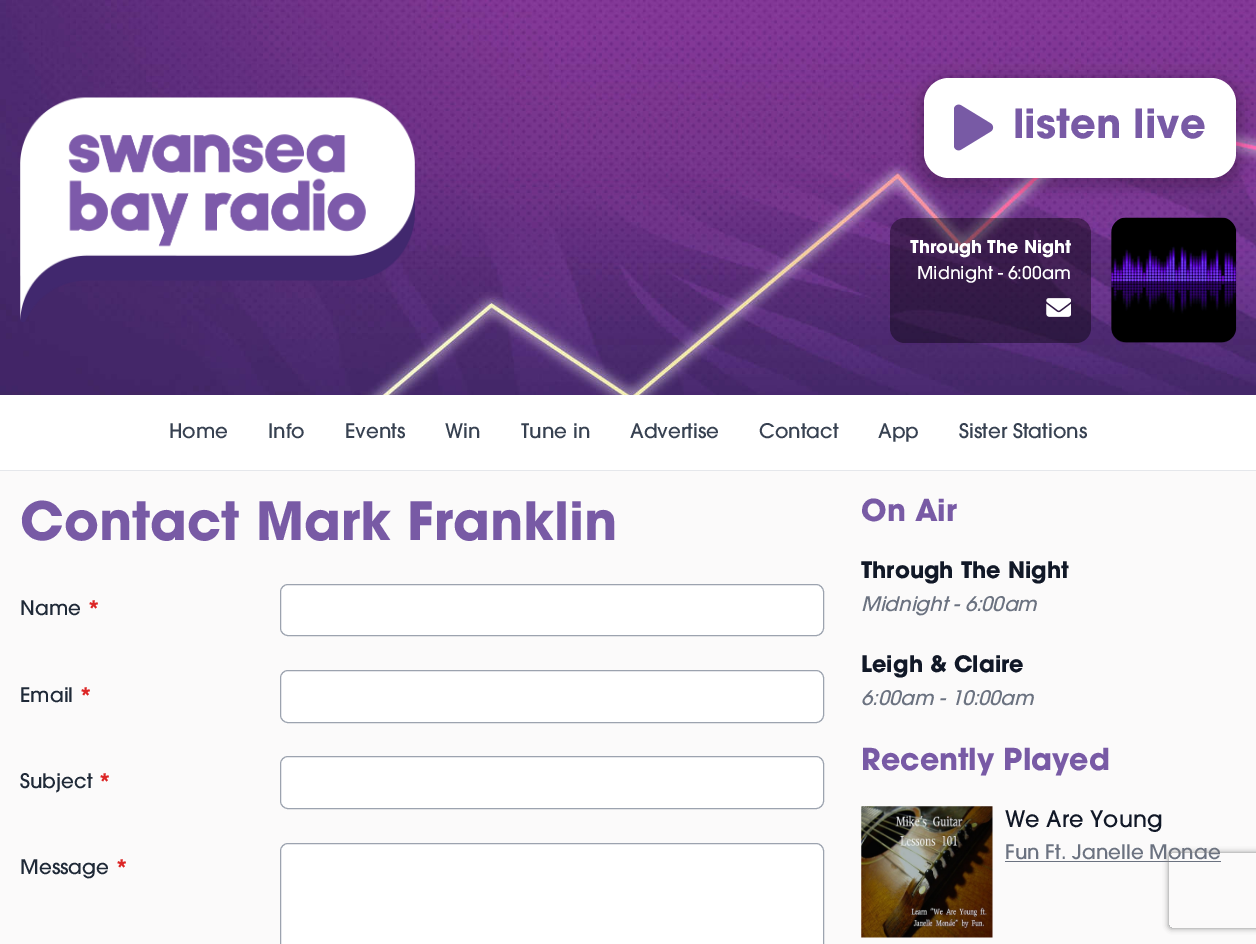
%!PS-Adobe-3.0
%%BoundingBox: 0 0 1256 944
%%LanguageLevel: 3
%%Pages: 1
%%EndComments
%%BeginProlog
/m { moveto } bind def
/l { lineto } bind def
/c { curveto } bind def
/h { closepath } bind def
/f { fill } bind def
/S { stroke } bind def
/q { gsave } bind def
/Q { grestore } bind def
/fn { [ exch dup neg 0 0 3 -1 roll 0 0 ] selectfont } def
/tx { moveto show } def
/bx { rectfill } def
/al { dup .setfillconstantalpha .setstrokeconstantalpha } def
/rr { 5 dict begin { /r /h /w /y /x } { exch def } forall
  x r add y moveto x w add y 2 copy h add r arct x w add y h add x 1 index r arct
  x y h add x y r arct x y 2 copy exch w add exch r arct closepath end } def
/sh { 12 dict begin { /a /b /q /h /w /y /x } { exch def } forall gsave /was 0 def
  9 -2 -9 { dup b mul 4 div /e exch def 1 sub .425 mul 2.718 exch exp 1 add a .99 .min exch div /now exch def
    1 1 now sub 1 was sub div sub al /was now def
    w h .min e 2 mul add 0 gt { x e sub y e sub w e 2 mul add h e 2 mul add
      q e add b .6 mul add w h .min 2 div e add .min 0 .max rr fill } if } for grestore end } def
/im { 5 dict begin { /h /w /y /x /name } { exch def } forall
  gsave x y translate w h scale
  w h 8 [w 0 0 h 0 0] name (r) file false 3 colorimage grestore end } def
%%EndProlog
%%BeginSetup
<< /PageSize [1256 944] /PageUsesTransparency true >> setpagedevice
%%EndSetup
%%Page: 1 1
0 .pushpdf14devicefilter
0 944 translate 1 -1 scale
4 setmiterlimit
0.984 0.98 0.98 setrgbcolor
0 0 1256 944 bx
(image0.raw) 0 0 1256 395 im
(image1.raw) 20 97 395 225 im
0 setgray
918 76 325 113 31 6 0.18 sh
1 setgray
924 78 312 100 25 rr f
(image2.raw) 954 104 40 47 im
/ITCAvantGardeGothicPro-Bold 40 fn
0.471 0.353 0.647 setrgbcolor
(listen live) 1013 138 tx
0.4 al
0 setgray
890 218 201 125 15 rr f
/ITCAvantGardeGothicPro-Bold 17.5 fn
1 al
1 setgray
(Through The Night) 910 253 tx
/ITCAvantGardeGothicPro-Medium 17.5 fn
(Midnight - 6:00am) 917 279 tx
(image3.raw) 1046 298 25 19 im
0.2 al
0 setgray
1111 218 125 125 15 rr f
1 al
(image4.raw) 1111 217 126 126 im
1 setgray
0 395 1256 75 bx
0.898 0.906 0.922 setrgbcolor
0 470 1256 1 bx
/ITCAvantGardeGothicPro-Medium 20 fn
0.216 0.255 0.318 setrgbcolor
(Home) 169 438 tx
(Info) 268 438 tx
(Events) 345 438 tx
(Win) 445 438 tx
(Tune in) 521 438 tx
(Advertise) 630 438 tx
(Contact) 759 438 tx
(App) 878 438 tx
(Sister Stations) 959 438 tx
/ITCAvantGardeGothicPro-Bold 52.5 fn
0.471 0.353 0.647 setrgbcolor
(Contact Mark Franklin) 20 540 tx
/ITCAvantGardeGothicPro-Medium 20 fn
0.122 0.161 0.216 setrgbcolor
(Name) 20 615 tx
/ITCAvantGardeGothicPro-Bold 20 fn
0.863 0.149 0.149 setrgbcolor
(*) 87 615 tx
1 setgray
280.5 584.5 543 51 7.5 rr q f Q
0.612 0.639 0.686 setrgbcolor
S
/ITCAvantGardeGothicPro-Medium 20 fn
0.122 0.161 0.216 setrgbcolor
(Email) 20 702 tx
/ITCAvantGardeGothicPro-Bold 20 fn
0.863 0.149 0.149 setrgbcolor
(*) 79 702 tx
1 setgray
280.5 670.5 543 52 7.5 rr q f Q
0.612 0.639 0.686 setrgbcolor
S
/ITCAvantGardeGothicPro-Medium 20 fn
0.122 0.161 0.216 setrgbcolor
(Subject) 20 788 tx
/ITCAvantGardeGothicPro-Bold 20 fn
0.863 0.149 0.149 setrgbcolor
(*) 98 788 tx
1 setgray
280.5 756.5 543 52 7.5 rr q f Q
0.612 0.639 0.686 setrgbcolor
S
/ITCAvantGardeGothicPro-Medium 20 fn
0.122 0.161 0.216 setrgbcolor
(Message) 20 874 tx
/ITCAvantGardeGothicPro-Bold 20 fn
0.863 0.149 0.149 setrgbcolor
(*) 115 874 tx
1 setgray
280.5 843.5 543 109 7.5 rr q f Q
0.612 0.639 0.686 setrgbcolor
S
/ITCAvantGardeGothicPro-Bold 30 fn
0.471 0.353 0.647 setrgbcolor
(On Air) 861 521 tx
/ITCAvantGardeGothicPro-Bold 22.5 fn
0.067 0.094 0.153 setrgbcolor
(Through The Night) 861 578 tx
/ITCAvantGardeGothicPro-MediumItalic 20 fn
0.42 0.447 0.502 setrgbcolor
(Midnight - 6:00am) 861 611 tx
/ITCAvantGardeGothicPro-Bold 22.5 fn
0.067 0.094 0.153 setrgbcolor
(Leigh & Claire) 861 672 tx
/ITCAvantGardeGothicPro-MediumItalic 20 fn
0.42 0.447 0.502 setrgbcolor
(6:00am - 10:00am) 861 705 tx
/ITCAvantGardeGothicPro-Bold 30 fn
0.471 0.353 0.647 setrgbcolor
(Recently Played) 861 770 tx
(image5.raw) 861 806 132 132 im
/ITCAvantGardeGothicPro-Medium 22.5 fn
0.067 0.094 0.153 setrgbcolor
(We Are Young) 1005 827 tx
/ITCAvantGardeGothicPro-Medium 20 fn
0.42 0.447 0.502 setrgbcolor
(Fun Ft. Janelle Monae) 1005 859 tx
1005 861 216 1 bx
q
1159 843 m 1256 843 l 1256 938 l 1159 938 l h 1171.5 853 m 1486.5 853 l 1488 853 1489 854 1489 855.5 c 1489 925.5 l 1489 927 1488 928 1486.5 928 c 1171.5 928 l 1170 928 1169 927 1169 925.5 c 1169 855.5 l 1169 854 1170 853 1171.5 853 c h eoclip newpath
0.502 setgray
1169 853 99 75 2.5 3 1 sh
Q
.poppdf14devicefilter showpage
%%EOF
